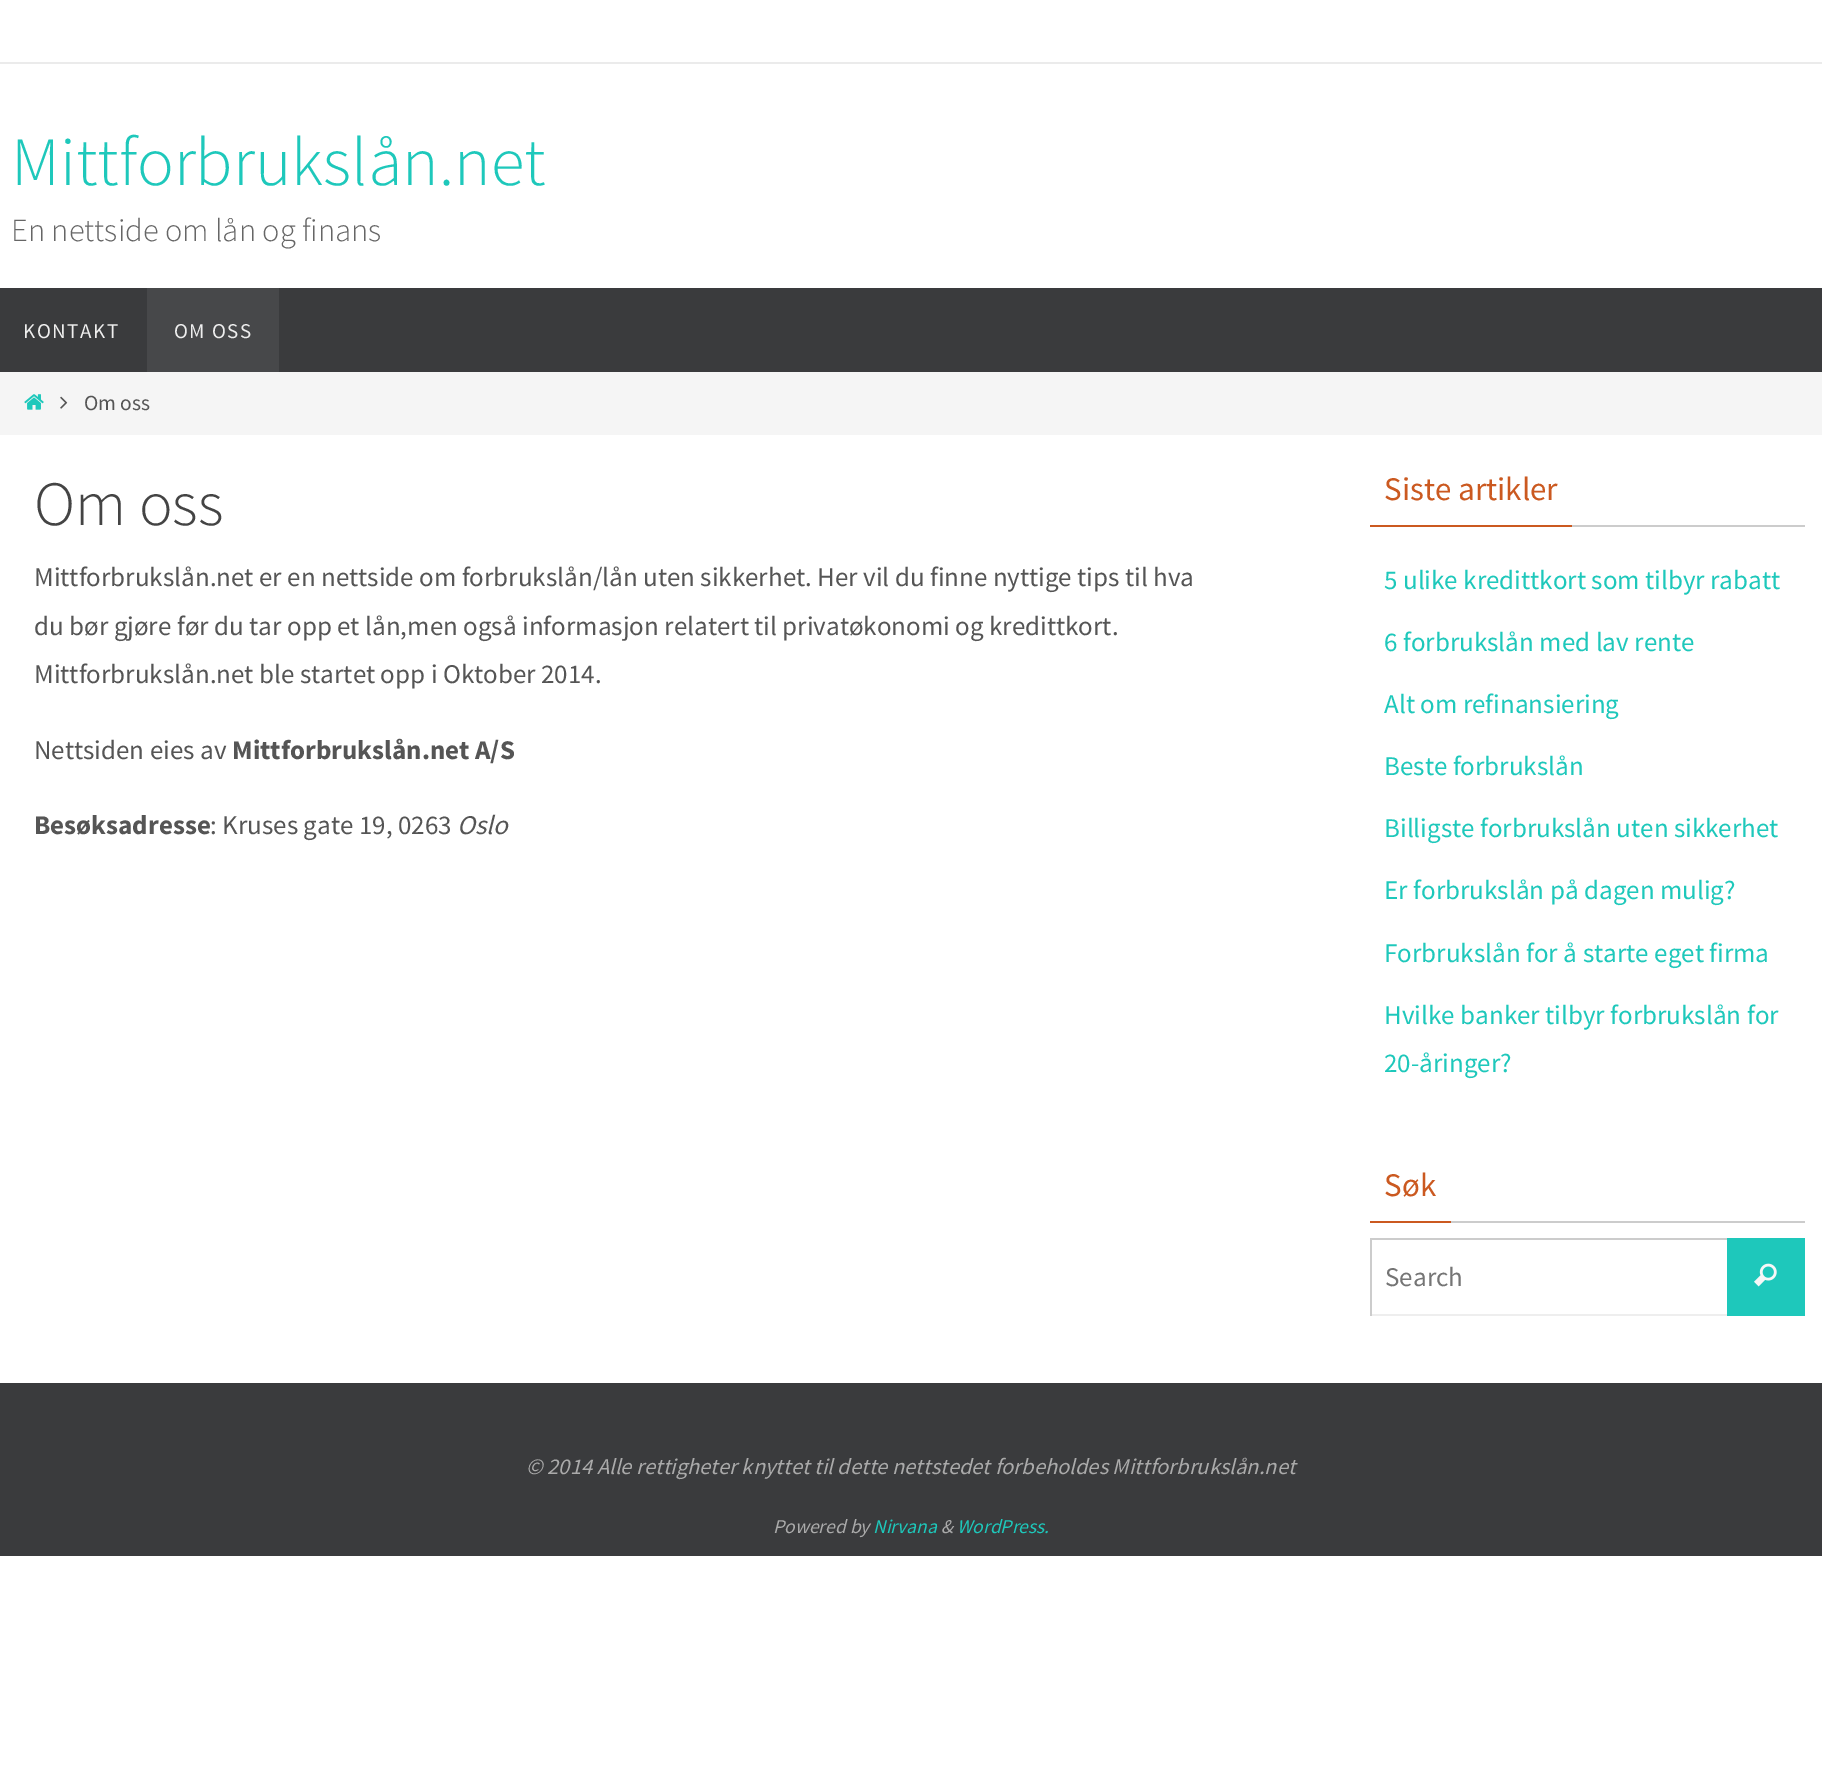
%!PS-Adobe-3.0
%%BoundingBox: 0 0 1822 1776
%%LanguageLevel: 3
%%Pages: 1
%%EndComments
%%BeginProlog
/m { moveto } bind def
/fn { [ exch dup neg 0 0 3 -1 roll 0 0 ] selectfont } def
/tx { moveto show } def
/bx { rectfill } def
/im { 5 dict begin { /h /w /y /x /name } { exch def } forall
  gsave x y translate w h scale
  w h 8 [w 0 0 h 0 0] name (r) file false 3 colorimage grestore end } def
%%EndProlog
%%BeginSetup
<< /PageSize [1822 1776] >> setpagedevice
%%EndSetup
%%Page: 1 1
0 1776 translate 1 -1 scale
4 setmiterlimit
1 setgray
0 0 1822 1776 bx
0.922 setgray
0 62 1822 2 bx
/SourceSansPro-Light 69 fn
0.118 0.784 0.733 setrgbcolor
(Mittforbrukslån.net) 11 185 tx
/SourceSansPro-Light 32.4 fn
0.4 setgray
(En nettside om lån og finans) 11 241 tx
0.227 0.231 0.239 setrgbcolor
0 288 1822 84 bx
/SourceSansPro-Regular 21 fn
0.933 setgray
23 338 m 1.5 0 (KONTAKT) ashow
0.278 0.282 0.29 setrgbcolor
147 288 132 84 bx
0.933 setgray
174 338 m 1.5 0 (OM OSS) ashow
0.961 setgray
0 372 1822 63 bx
(image0.raw) 24 394 20 16 im
(image1.raw) 60 396 8 13 im
/SourceSansPro-Regular 21.5 fn
0.333 setgray
(Om oss) 84 410 tx
/SourceSansPro-Light 63 fn
0.267 setgray
(Om oss) 34 525 tx
/SourceSansPro-Regular 27 fn
0.333 setgray
(Mittforbrukslån.net er en nettside om forbrukslån/lån uten sikkerhet. Her vil du finne nyttige tips til hva) 34 586 tx
(du bør gjøre før du tar opp et lån,men også informasjon relatert til privatøkonomi og kredittkort.) 34 635 tx
(Mittforbrukslån.net ble startet opp i Oktober 2014.) 34 683 tx
(Nettsiden eies av) 34 759 tx
/SourceSansPro-Bold 27 fn
(Mittforbrukslån.net A/S) 232 759 tx
(Besøksadresse) 34 834 tx
/SourceSansPro-Regular 27 fn
(: Kruses gate 19, 0263) 210 834 tx
/SourceSansPro-Italic 27 fn
(Oslo) 457 834 tx
0.8 setgray
1572 525 233 2 bx
0.796 0.349 0.125 setrgbcolor
1370 525 202 2 bx
/SourceSansPro-Regular 33 fn
(Siste artikler) 1384 500 tx
/SourceSansPro-Regular 27 fn
0.118 0.784 0.733 setrgbcolor
(5 ulike kredittkort som tilbyr rabatt) 1384 589 tx
(6 forbrukslån med lav rente) 1384 651 tx
(Alt om refinansiering) 1384 713 tx
(Beste forbrukslån) 1384 775 tx
(Billigste forbrukslån uten sikkerhet) 1384 837 tx
(Er forbrukslån på dagen mulig?) 1384 899 tx
(Forbrukslån for å starte eget firma) 1384 962 tx
(Hvilke banker tilbyr forbrukslån for) 1384 1024 tx
(20-åringer?) 1384 1072 tx
0.8 setgray
1451 1221 354 2 bx
0.796 0.349 0.125 setrgbcolor
1370 1221 81 2 bx
/SourceSansPro-Regular 33 fn
(Søk) 1384 1196 tx
0.118 0.784 0.733 setrgbcolor
1727 1238 78 78 bx
0.8 setgray
1370 1238 357 2 bx
0.933 setgray
1370 1314 357 2 bx
0.8 setgray
1370 1238 2 78 bx
/SourceSansPro-Regular 27 fn
0.459 setgray
(Search) 1385 1286 tx
(image2.raw) 1754 1263 23 24 im
0.227 0.231 0.239 setrgbcolor
0 1383 1822 173 bx
/SourceSansPro-Italic 22.5 fn
0.667 setgray
(© 2014 Alle rettigheter knyttet til dette nettstedet forbeholdes Mittforbrukslån.net) 526 1474 tx
/SourceSansPro-Italic 19.5 fn
(Powered by) 773 1533 tx
0.118 0.784 0.733 setrgbcolor
(Nirvana) 873 1533 tx
0.667 setgray
(&) 941 1533 tx
0.118 0.784 0.733 setrgbcolor
(WordPress.) 957 1533 tx
showpage
%%EOF
